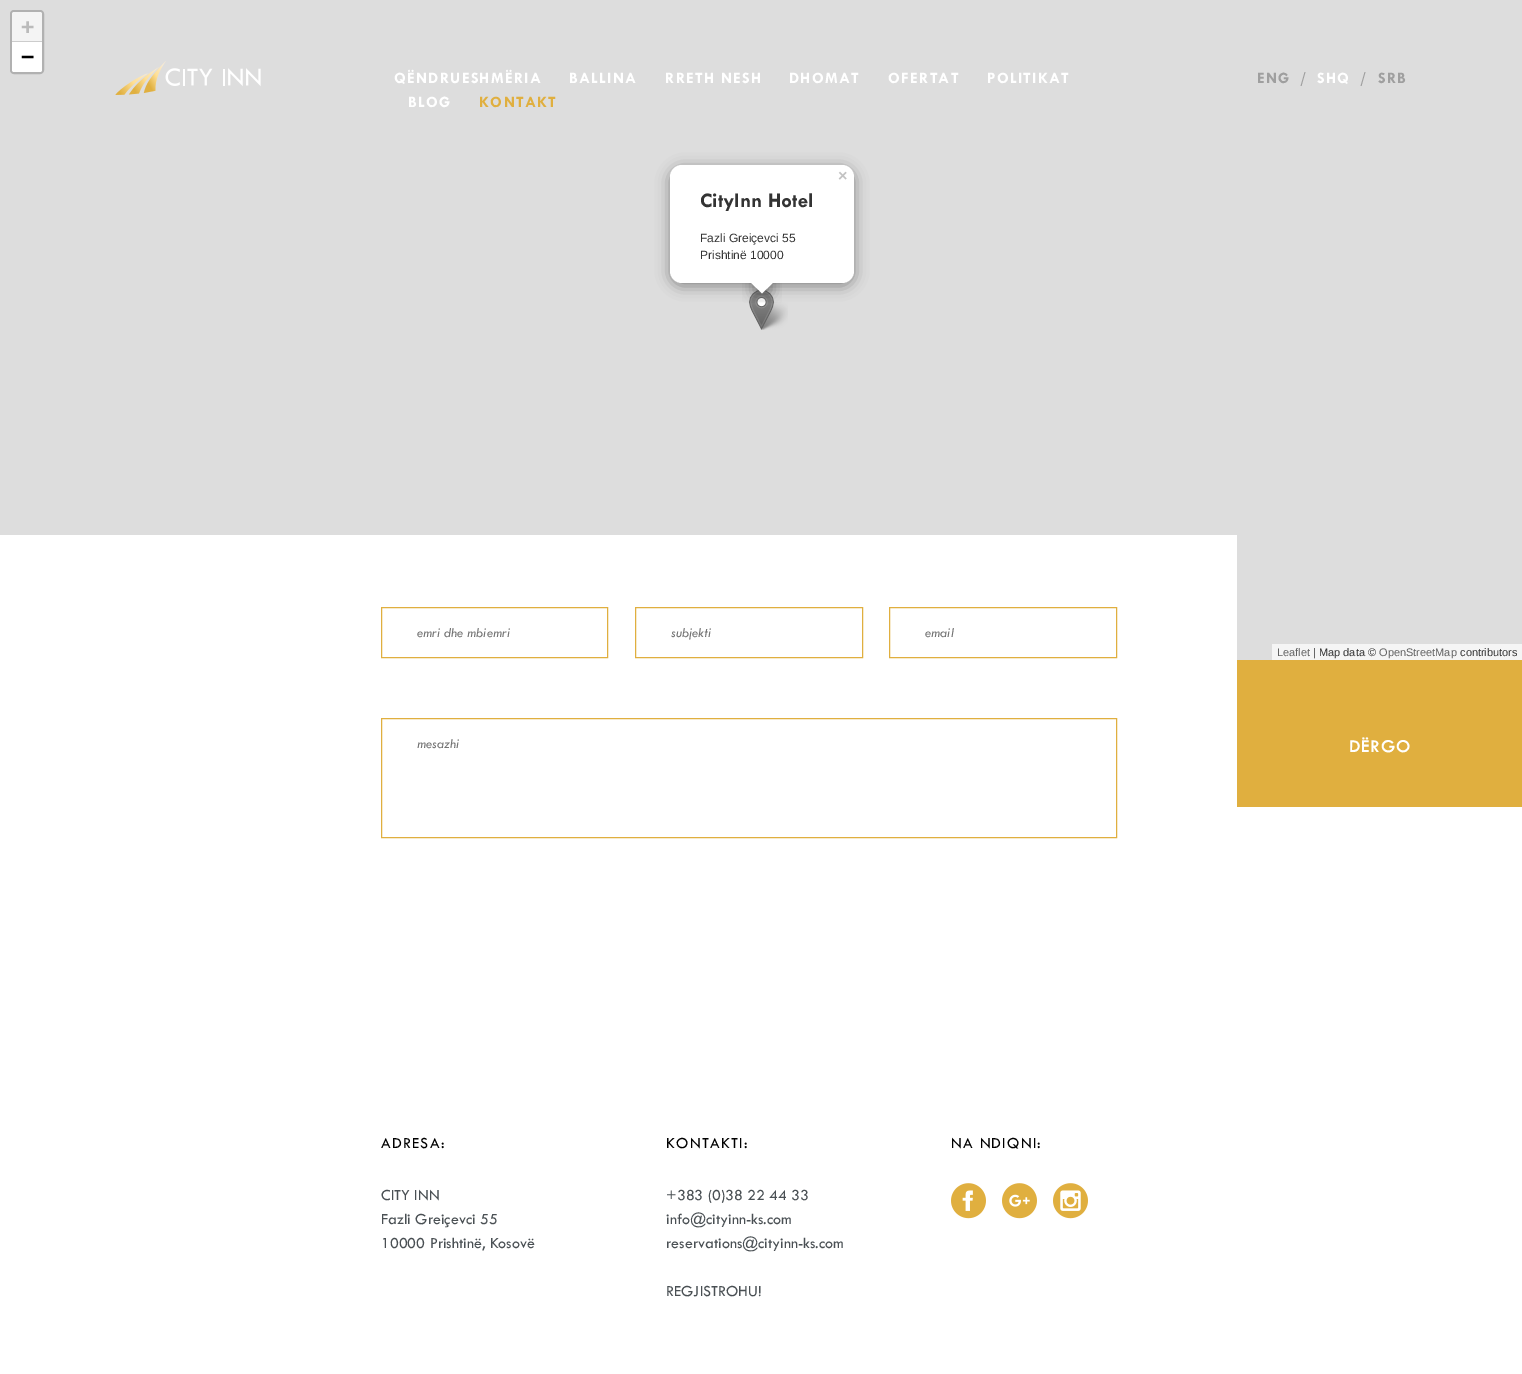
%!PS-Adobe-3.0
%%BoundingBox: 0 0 1522 1374
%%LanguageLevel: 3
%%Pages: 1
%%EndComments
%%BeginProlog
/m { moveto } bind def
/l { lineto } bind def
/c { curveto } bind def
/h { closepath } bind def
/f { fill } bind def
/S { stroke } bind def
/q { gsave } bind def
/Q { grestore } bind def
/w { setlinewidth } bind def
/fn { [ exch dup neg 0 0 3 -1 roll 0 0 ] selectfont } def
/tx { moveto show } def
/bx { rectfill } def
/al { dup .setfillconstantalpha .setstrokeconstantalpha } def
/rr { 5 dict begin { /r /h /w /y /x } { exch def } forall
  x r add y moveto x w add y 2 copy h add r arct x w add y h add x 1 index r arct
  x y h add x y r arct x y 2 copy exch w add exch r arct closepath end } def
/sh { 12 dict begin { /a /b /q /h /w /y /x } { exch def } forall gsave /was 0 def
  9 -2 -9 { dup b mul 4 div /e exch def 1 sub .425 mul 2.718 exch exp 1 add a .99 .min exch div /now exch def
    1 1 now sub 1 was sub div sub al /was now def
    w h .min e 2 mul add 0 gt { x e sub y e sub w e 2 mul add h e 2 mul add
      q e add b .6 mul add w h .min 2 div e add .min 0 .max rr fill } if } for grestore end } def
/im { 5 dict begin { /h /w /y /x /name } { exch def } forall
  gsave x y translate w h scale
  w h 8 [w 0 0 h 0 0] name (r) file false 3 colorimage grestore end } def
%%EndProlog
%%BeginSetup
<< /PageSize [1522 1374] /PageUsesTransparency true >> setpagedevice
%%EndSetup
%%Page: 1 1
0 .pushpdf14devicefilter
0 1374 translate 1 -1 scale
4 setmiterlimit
1 setgray
0 0 1522 1374 bx
0.867 setgray
0 0 1522 660 bx
0.694 setgray
2 w
11 11 32 62 3 rr S
0.957 setgray
14 12 m 40 12 l 41 12 42 13 42 14 c 42 42 l 12 42 l 12 14 l 12 13 13 12 14 12 c h f
0.8 setgray
12 41 30 1 bx
/DejaVuSansMono-Bold 22 fn
0.733 setgray
(+) 21 34 tx
1 setgray
12 42 m 42 42 l 42 70 l 42 71 41 72 40 72 c 14 72 l 13 72 12 71 12 70 c h f
0 setgray
(−) 21 64 tx
0.961 setgray
1272 644 250 16 bx
/LiberationSans-Regular 11 fn
0.384 setgray
(Leaflet) 1277 656 tx
0.2 setgray
(| Map data ©) 1313 656 tx
0.384 setgray
(OpenStreetMap) 1379 656 tx
0.2 setgray
(contributors) 1460 656 tx
(image1.raw) 759 302 29 28 im
(image0.raw) 749 290 25 40 im
0 setgray
670 168 184 118 12 7 0.4 sh
1 setgray
670 165 184 118 12 rr f
/LiberationSans-Bold 16 fn
0.765 setgray
(×) 838 181 tx
/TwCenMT-Bold 21 fn
0.2 setgray
(CityInn Hotel) 700 207 tx
/LiberationSans-Regular 12 fn
(Fazli Greiçevci 55) 700 242 tx
(Prishtinë 10000) 700 259 tx
q
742 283 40 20 rectclip
0 setgray
754 276 17 17 0 7 0.4 sh
Q
q
742 283 40 20 rectclip
1 setgray
762 269.5 m 774 281.5 l 762 293.5 l 750 281.5 l h f
Q
(image2.raw) 115 61 146 34 im
/TwCenMT-Bold 16 fn
1 setgray
394 83 m 1.25 0 (QËNDRUESHMËRIA) ashow
569 83 m 1.25 0 (BALLINA) ashow
665 83 m 1.25 0 (RRETH NESH) ashow
789 83 m 1.25 0 (DHOMAT) ashow
888 83 m 1.25 0 (OFERTAT) ashow
987 83 m 1.25 0 (POLITIKAT) ashow
408 107 m 1.25 0 (BLOG) ashow
0.878 0.686 0.247 setrgbcolor
479 107 m 1.25 0 (KONTAKT) ashow
0.624 setgray
1257 83 m 1.25 0 (ENG) ashow
1300 83 m 1.25 0 (/) ashow
1 setgray
1317 83 m 1.25 0 (SHQ) ashow
0.624 setgray
1360 83 m 1.25 0 (/) ashow
1378 83 m 1.25 0 (SRB) ashow
1 setgray
0 535 1237 125 bx
0.878 0.686 0.247 setrgbcolor
1 w
381.5 607.5 226 50 rectstroke
/TwCenMT-Italic 14 fn
0.459 setgray
(emri dhe mbiemri) 417 637 tx
0.878 0.686 0.247 setrgbcolor
635.5 607.5 227 50 rectstroke
0.459 setgray
(subjekti) 671 637 tx
0.878 0.686 0.247 setrgbcolor
889.5 607.5 227 50 rectstroke
0.459 setgray
(email) 925 637 tx
0.878 0.686 0.247 setrgbcolor
381.5 718.5 735 119 rectstroke
0.459 setgray
(mesazhi) 417 748 tx
0.878 0.686 0.247 setrgbcolor
1237 660 285 147 bx
/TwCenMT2-Bold 18 fn
1 setgray
1349 752 m 1.25 0 (DËRGO) ashow
/TwCenMT-Regular 16 fn
0 setgray
381 1148 m 1.25 0 (ADRESA:) ashow
0.29 0.314 0.329 setrgbcolor
(CITY INN) 381 1200 tx
(Fazli Greiçevci 55) 381 1224 tx
(10000 Prishtinë, Kosovë) 381 1248 tx
0 setgray
666 1148 m 1.25 0 (KONTAKTI:) ashow
0.29 0.314 0.329 setrgbcolor
(+383 \(0\)38 22 44 33) 666 1200 tx
(info@cityinn-ks.com) 666 1224 tx
(reservations@cityinn-ks.com) 666 1248 tx
(REGJISTROHU!) 666 1296 tx
0 setgray
951 1148 m 1.25 0 (NA NDIQNI:) ashow
(image3.raw) 951 1183 35 36 im
(image4.raw) 1002 1183 35 36 im
(image5.raw) 1053 1183 35 36 im
.poppdf14devicefilter showpage
%%EOF
